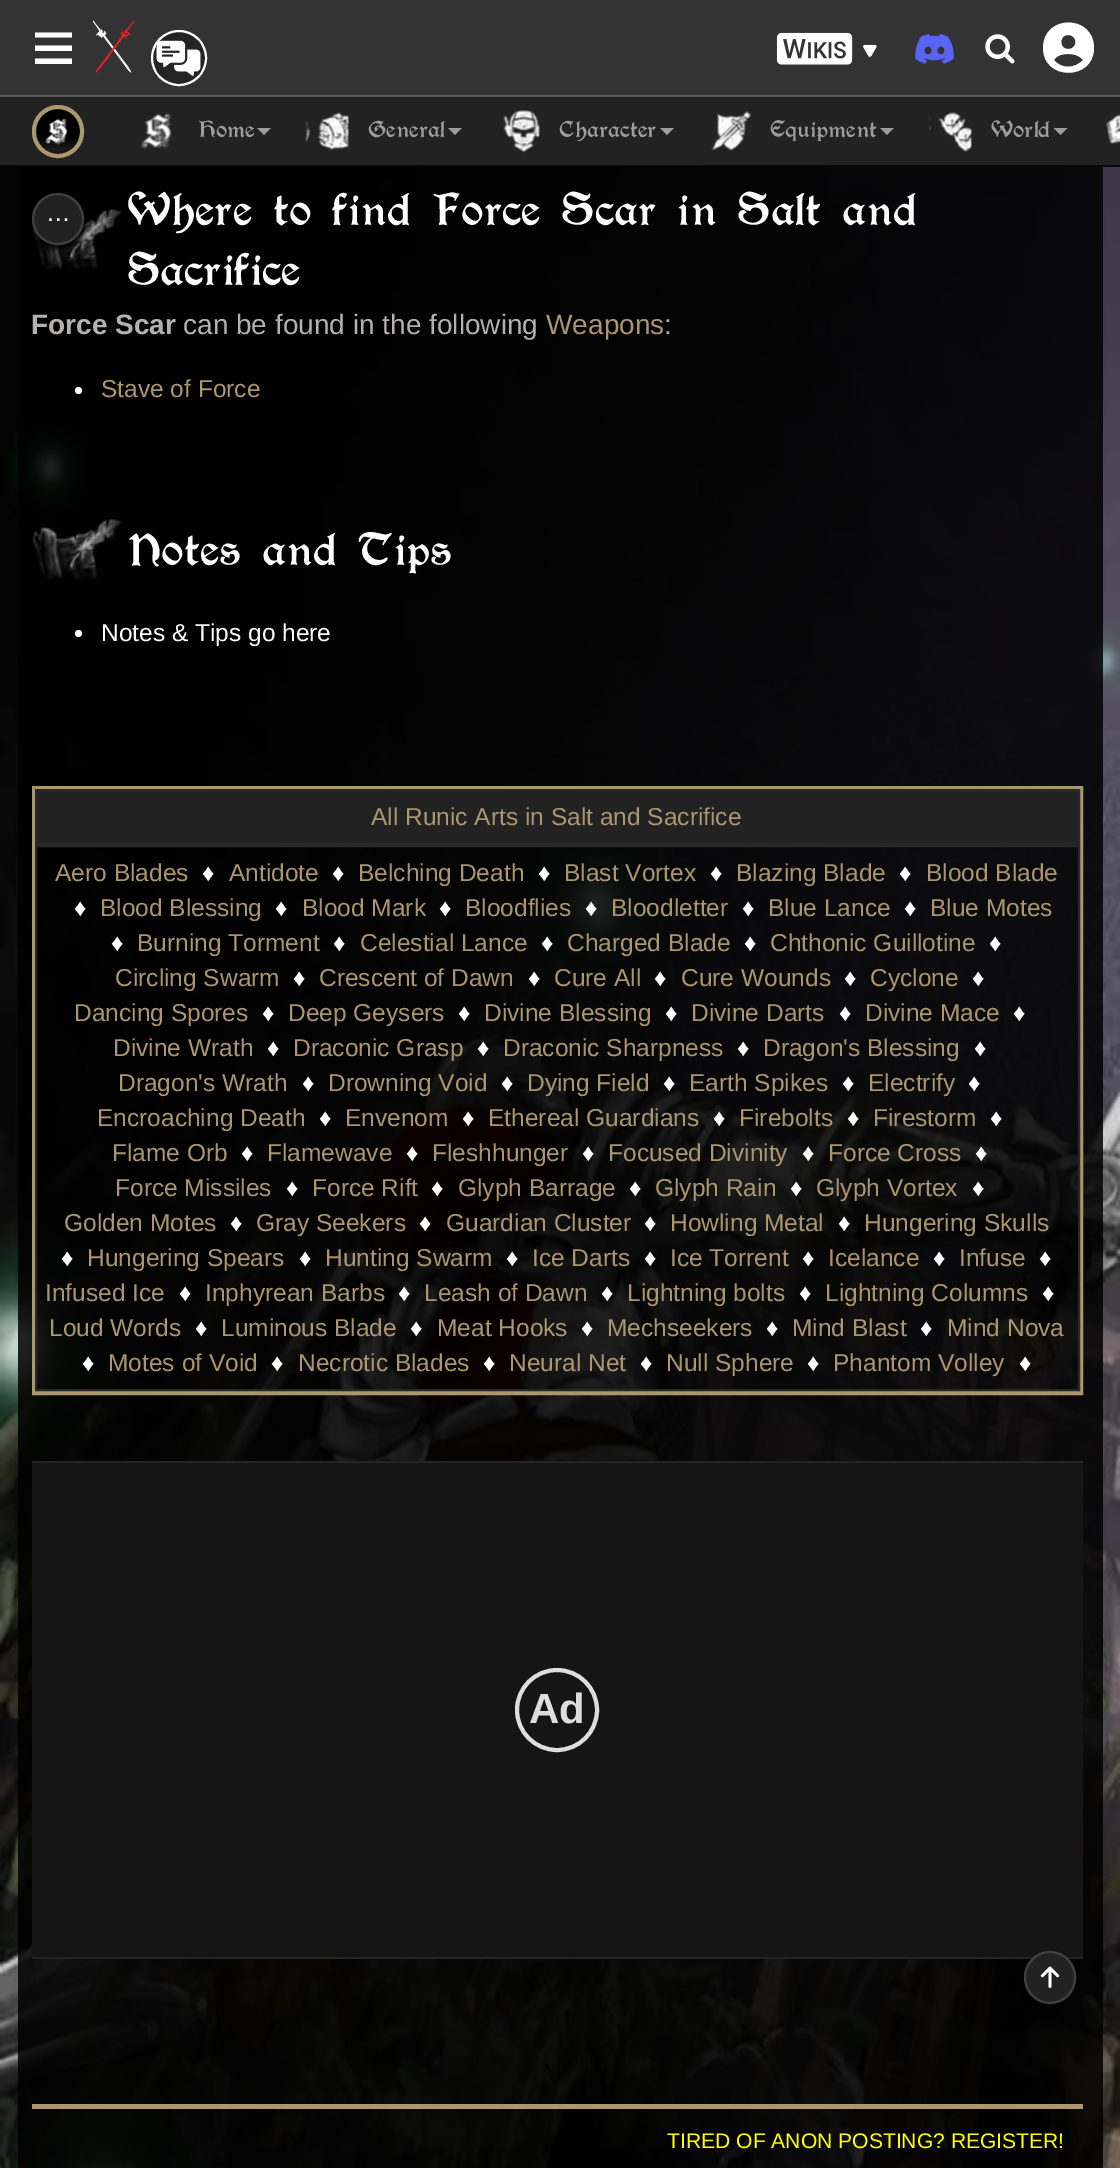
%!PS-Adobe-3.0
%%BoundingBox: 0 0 1120 2168
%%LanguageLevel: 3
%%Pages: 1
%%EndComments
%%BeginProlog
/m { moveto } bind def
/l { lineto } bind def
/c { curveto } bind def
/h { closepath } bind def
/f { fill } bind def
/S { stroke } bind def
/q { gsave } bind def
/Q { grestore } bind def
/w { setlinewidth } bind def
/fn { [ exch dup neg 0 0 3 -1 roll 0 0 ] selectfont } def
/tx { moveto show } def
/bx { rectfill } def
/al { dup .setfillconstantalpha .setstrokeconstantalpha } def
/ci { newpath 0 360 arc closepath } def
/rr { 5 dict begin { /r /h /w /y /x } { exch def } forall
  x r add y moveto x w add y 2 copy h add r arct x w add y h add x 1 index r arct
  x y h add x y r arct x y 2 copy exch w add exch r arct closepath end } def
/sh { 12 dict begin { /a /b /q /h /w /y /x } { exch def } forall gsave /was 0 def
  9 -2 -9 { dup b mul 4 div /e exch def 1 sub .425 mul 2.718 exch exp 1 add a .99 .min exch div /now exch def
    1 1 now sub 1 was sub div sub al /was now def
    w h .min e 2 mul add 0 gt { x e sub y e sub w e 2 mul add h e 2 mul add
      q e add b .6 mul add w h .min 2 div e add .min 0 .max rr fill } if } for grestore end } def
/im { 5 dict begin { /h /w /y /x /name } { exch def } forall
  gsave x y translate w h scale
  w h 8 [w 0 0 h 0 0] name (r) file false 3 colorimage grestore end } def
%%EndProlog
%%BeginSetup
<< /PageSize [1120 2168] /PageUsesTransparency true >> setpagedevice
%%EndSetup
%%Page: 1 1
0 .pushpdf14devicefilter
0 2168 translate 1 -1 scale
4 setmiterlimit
1 setgray
0 0 1120 2168 bx
0.2 setgray
0 0 1120 95 bx
0.349 setgray
0 95 1120 2 bx
1 setgray
35 32.5 m 72 32.5 l 72 37.5 l 35 37.5 l h 35 45.5 m 72 45.5 l 72 51 l 35 51 l h 72 58.5 m 72 64 l 35 64 l 35 58.5 l h f
(image0.raw) 93 20 42 53 im
0.141 setgray
179 58 27 ci q f Q
1 setgray
2 w
S
(image1.raw) 156 40 45 36 im
(image2.raw) 776 32 101 33 im
(image3.raw) 915 34 39 30 im
(image4.raw) 985 34 30 30 im
1083 60 m 1079 55 1074 54 1068 54 c 1063 54 1057 55 1054 60 c 1061 69 1075 69 1083 60 c h 1043 48 m 1043 14 1094 14 1094 48 c 1094 81 1043 81 1043 48 c h 1068 49 m 1078 49 1078 35 1068 35 c 1059 35 1059 49 1068 49 c h f
0.133 setgray
0 97 1120 68 bx
0.031 setgray
0 165 1120 2 bx
(image5.raw) 34 108 47 47 im
0.671 0.588 0.435 setrgbcolor
4 w
34 107 48 49 24 rr S
(image6.raw) 141 113 31 36 im
/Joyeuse-Regular 21 fn
0.616 setgray
(Home) 198 137 tx
257 128 m 271 128 l 264 135 l h f
(image7.raw) 305 112 44 39 im
(General) 368 137 tx
448 128 m 462 128 l 455 135 l h f
(image8.raw) 503 110 37 43 im
(Character) 559 137 tx
660 128 m 674 128 l 667 135 l h f
(image9.raw) 711 111 41 40 im
(Equipment) 770 137 tx
880 128 m 894 128 l 887 135 l h f
(image10.raw) 928 112 44 40 im
(World) 991 137 tx
1053.5 128 m 1067.5 128 l 1060.5 135 l h f
(image11.raw) 1106 114 14 30 im
(image12.raw) 0 167 1120 2001 im
(image13.raw) 32 209 89 60 im
/Joyeuse-Regular 42 fn
1 setgray
(Where to find Force Scar in Salt and) 127 225 tx
(Sacrifice) 127 285 tx
/LiberationSans-Bold 28 fn
0.706 0.698 0.69 setrgbcolor
(Force Scar) 31 334 tx
/LiberationSans-Regular 28 fn
(can be found in the following) 183 334 tx
0.671 0.588 0.435 setrgbcolor
(Weapons) 546 334 tx
0.706 0.698 0.69 setrgbcolor
(:) 664 334 tx
1 setgray
78.5 390.5 3.5 ci f
/LiberationSans-Regular 24.5 fn
0.671 0.588 0.435 setrgbcolor
(Stave of Force) 101 397 tx
(image14.raw) 32 519 89 60 im
/Joyeuse-Regular 42 fn
1 setgray
(Notes and Tips) 127 565 tx
78.5 633.5 3.5 ci f
/LiberationSans-Regular 24.5 fn
(Notes & Tips go here) 101 641 tx
0.671 0.588 0.435 setrgbcolor
34 788 1047 605 rectstroke
0.133 setgray
36 790 m 1079 790 l 1079 844 l 36 844 l h q f Q
0.157 setgray
2 w
S
0.671 0.588 0.435 setrgbcolor
(All Runic Arts in Salt and Sacrifice) 371 825 tx
0.157 setgray
36 846 1043 544 rectstroke
0.671 0.588 0.435 setrgbcolor
(Aero Blades) 55 881 tx
1 setgray
(♦) 202 881 tx
0.671 0.588 0.435 setrgbcolor
(Antidote) 229 881 tx
1 setgray
(♦) 332 881 tx
0.671 0.588 0.435 setrgbcolor
(Belching Death) 358 881 tx
1 setgray
(♦) 538 881 tx
0.671 0.588 0.435 setrgbcolor
(Blast Vortex) 564 881 tx
1 setgray
(♦) 710 881 tx
0.671 0.588 0.435 setrgbcolor
(Blazing Blade) 736 881 tx
1 setgray
(♦) 899 881 tx
0.671 0.588 0.435 setrgbcolor
(Blood Blade) 926 881 tx
1 setgray
(♦) 74 916 tx
0.671 0.588 0.435 setrgbcolor
(Blood Blessing) 100 916 tx
1 setgray
(♦) 275 916 tx
0.671 0.588 0.435 setrgbcolor
(Blood Mark) 302 916 tx
1 setgray
(♦) 439 916 tx
0.671 0.588 0.435 setrgbcolor
(Bloodflies) 465 916 tx
1 setgray
(♦) 585 916 tx
0.671 0.588 0.435 setrgbcolor
(Bloodletter) 611 916 tx
1 setgray
(♦) 742 916 tx
0.671 0.588 0.435 setrgbcolor
(Blue Lance) 768 916 tx
1 setgray
(♦) 904 916 tx
0.671 0.588 0.435 setrgbcolor
(Blue Motes) 930 916 tx
1 setgray
(♦) 111 951 tx
0.671 0.588 0.435 setrgbcolor
(Burning Torment) 137 951 tx
1 setgray
(♦) 333 951 tx
0.671 0.588 0.435 setrgbcolor
(Celestial Lance) 360 951 tx
1 setgray
(♦) 541 951 tx
0.671 0.588 0.435 setrgbcolor
(Charged Blade) 567 951 tx
1 setgray
(♦) 744 951 tx
0.671 0.588 0.435 setrgbcolor
(Chthonic Guillotine) 770 951 tx
1 setgray
(♦) 989 951 tx
0.671 0.588 0.435 setrgbcolor
(Circling Swarm) 115 986 tx
1 setgray
(♦) 293 986 tx
0.671 0.588 0.435 setrgbcolor
(Crescent of Dawn) 319 986 tx
1 setgray
(♦) 528 986 tx
0.671 0.588 0.435 setrgbcolor
(Cure All) 554 986 tx
1 setgray
(♦) 654 986 tx
0.671 0.588 0.435 setrgbcolor
(Cure Wounds) 681 986 tx
1 setgray
(♦) 844 986 tx
0.671 0.588 0.435 setrgbcolor
(Cyclone) 870 986 tx
1 setgray
(♦) 972 986 tx
0.671 0.588 0.435 setrgbcolor
(Dancing Spores) 74 1021 tx
1 setgray
(♦) 262 1021 tx
0.671 0.588 0.435 setrgbcolor
(Deep Geysers) 288 1021 tx
1 setgray
(♦) 458 1021 tx
0.671 0.588 0.435 setrgbcolor
(Divine Blessing) 484 1021 tx
1 setgray
(♦) 665 1021 tx
0.671 0.588 0.435 setrgbcolor
(Divine Darts) 691 1021 tx
1 setgray
(♦) 839 1021 tx
0.671 0.588 0.435 setrgbcolor
(Divine Mace) 865 1021 tx
1 setgray
(♦) 1013 1021 tx
0.671 0.588 0.435 setrgbcolor
(Divine Wrath) 113 1056 tx
1 setgray
(♦) 267 1056 tx
0.671 0.588 0.435 setrgbcolor
(Draconic Grasp) 293 1056 tx
1 setgray
(♦) 477 1056 tx
0.671 0.588 0.435 setrgbcolor
(Draconic Sharpness) 503 1056 tx
1 setgray
(♦) 737 1056 tx
0.671 0.588 0.435 setrgbcolor
(Dragon's Blessing) 763 1056 tx
1 setgray
(♦) 974 1056 tx
0.671 0.588 0.435 setrgbcolor
(Dragon's Wrath) 118 1091 tx
1 setgray
(♦) 302 1091 tx
0.671 0.588 0.435 setrgbcolor
(Drowning Void) 328 1091 tx
1 setgray
(♦) 501 1091 tx
0.671 0.588 0.435 setrgbcolor
(Dying Field) 527 1091 tx
1 setgray
(♦) 663 1091 tx
0.671 0.588 0.435 setrgbcolor
(Earth Spikes) 689 1091 tx
1 setgray
(♦) 842 1091 tx
0.671 0.588 0.435 setrgbcolor
(Electrify) 868 1091 tx
1 setgray
(♦) 968 1091 tx
0.671 0.588 0.435 setrgbcolor
(Encroaching Death) 97 1126 tx
1 setgray
(♦) 319 1126 tx
0.671 0.588 0.435 setrgbcolor
(Envenom) 345 1126 tx
1 setgray
(♦) 462 1126 tx
0.671 0.588 0.435 setrgbcolor
(Ethereal Guardians) 488 1126 tx
1 setgray
(♦) 713 1126 tx
0.671 0.588 0.435 setrgbcolor
(Firebolts) 739 1126 tx
1 setgray
(♦) 847 1126 tx
0.671 0.588 0.435 setrgbcolor
(Firestorm) 873 1126 tx
1 setgray
(♦) 990 1126 tx
0.671 0.588 0.435 setrgbcolor
(Flame Orb) 112 1161 tx
1 setgray
(♦) 241 1161 tx
0.671 0.588 0.435 setrgbcolor
(Flamewave) 267 1161 tx
1 setgray
(♦) 406 1161 tx
0.671 0.588 0.435 setrgbcolor
(Fleshhunger) 432 1161 tx
1 setgray
(♦) 582 1161 tx
0.671 0.588 0.435 setrgbcolor
(Focused Divinity) 608 1161 tx
1 setgray
(♦) 802 1161 tx
0.671 0.588 0.435 setrgbcolor
(Force Cross) 828 1161 tx
1 setgray
(♦) 975 1161 tx
0.671 0.588 0.435 setrgbcolor
(Force Missiles) 115 1196 tx
1 setgray
(♦) 286 1196 tx
0.671 0.588 0.435 setrgbcolor
(Force Rift) 312 1196 tx
1 setgray
(♦) 431 1196 tx
0.671 0.588 0.435 setrgbcolor
(Glyph Barrage) 458 1196 tx
1 setgray
(♦) 629 1196 tx
0.671 0.588 0.435 setrgbcolor
(Glyph Rain) 655 1196 tx
1 setgray
(♦) 790 1196 tx
0.671 0.588 0.435 setrgbcolor
(Glyph Vortex) 816 1196 tx
1 setgray
(♦) 972 1196 tx
0.671 0.588 0.435 setrgbcolor
(Golden Motes) 64 1231 tx
1 setgray
(♦) 230 1231 tx
0.671 0.588 0.435 setrgbcolor
(Gray Seekers) 256 1231 tx
1 setgray
(♦) 419 1231 tx
0.671 0.588 0.435 setrgbcolor
(Guardian Cluster) 446 1231 tx
1 setgray
(♦) 644 1231 tx
0.671 0.588 0.435 setrgbcolor
(Howling Metal) 670 1231 tx
1 setgray
(♦) 838 1231 tx
0.671 0.588 0.435 setrgbcolor
(Hungering Skulls) 864 1231 tx
1 setgray
(♦) 61 1266 tx
0.671 0.588 0.435 setrgbcolor
(Hungering Spears) 87 1266 tx
1 setgray
(♦) 299 1266 tx
0.671 0.588 0.435 setrgbcolor
(Hunting Swarm) 325 1266 tx
1 setgray
(♦) 506 1266 tx
0.671 0.588 0.435 setrgbcolor
(Ice Darts) 532 1266 tx
1 setgray
(♦) 644 1266 tx
0.671 0.588 0.435 setrgbcolor
(Ice Torrent) 670 1266 tx
1 setgray
(♦) 802 1266 tx
0.671 0.588 0.435 setrgbcolor
(Icelance) 828 1266 tx
1 setgray
(♦) 933 1266 tx
0.671 0.588 0.435 setrgbcolor
(Infuse) 959 1266 tx
1 setgray
(♦) 1039 1266 tx
0.671 0.588 0.435 setrgbcolor
(Infused Ice) 45 1301 tx
1 setgray
(♦) 179 1301 tx
0.671 0.588 0.435 setrgbcolor
(Inphyrean Barbs) 205 1301 tx
1 setgray
(♦) 398 1301 tx
0.671 0.588 0.435 setrgbcolor
(Leash of Dawn) 424 1301 tx
1 setgray
(♦) 601 1301 tx
0.671 0.588 0.435 setrgbcolor
(Lightning bolts) 627 1301 tx
1 setgray
(♦) 799 1301 tx
0.671 0.588 0.435 setrgbcolor
(Lightning Columns) 825 1301 tx
1 setgray
(♦) 1042 1301 tx
0.671 0.588 0.435 setrgbcolor
(Loud Words) 49 1336 tx
1 setgray
(♦) 195 1336 tx
0.671 0.588 0.435 setrgbcolor
(Luminous Blade) 221 1336 tx
1 setgray
(♦) 410 1336 tx
0.671 0.588 0.435 setrgbcolor
(Meat Hooks) 437 1336 tx
1 setgray
(♦) 581 1336 tx
0.671 0.588 0.435 setrgbcolor
(Mechseekers) 607 1336 tx
1 setgray
(♦) 766 1336 tx
0.671 0.588 0.435 setrgbcolor
(Mind Blast) 792 1336 tx
1 setgray
(♦) 920 1336 tx
0.671 0.588 0.435 setrgbcolor
(Mind Nova) 947 1336 tx
1 setgray
(♦) 82 1371 tx
0.671 0.588 0.435 setrgbcolor
(Motes of Void) 108 1371 tx
1 setgray
(♦) 271 1371 tx
0.671 0.588 0.435 setrgbcolor
(Necrotic Blades) 298 1371 tx
1 setgray
(♦) 483 1371 tx
0.671 0.588 0.435 setrgbcolor
(Neural Net) 509 1371 tx
1 setgray
(♦) 640 1371 tx
0.671 0.588 0.435 setrgbcolor
(Null Sphere) 666 1371 tx
1 setgray
(♦) 807 1371 tx
0.671 0.588 0.435 setrgbcolor
(Phantom Volley) 833 1371 tx
1 setgray
(♦) 1019 1371 tx
0.141 setgray
32 1461 1051 2 bx
32 1957 1051 2 bx
0.082 setgray
32 1463 1051 494 bx
0.867 setgray
4 w
557 1710 40 ci S
/LiberationSans-Bold 42 fn
(Ad) 529 1723 tx
0.671 0.588 0.435 setrgbcolor
32 2104 1051 5 bx
/LiberationSans-Regular 21.1 fn
1 1 0 setrgbcolor
(TIRED OF ANON POSTING? REGISTER!) 667 2148 tx
0.133 setgray
1025 1952 50 51 25 rr q f Q
0.251 setgray
2 w
S
(image15.raw) 1040 1966 20 22 im
0 setgray
33 196 53 53 26.5 3.5 1 sh
0.133 setgray
58 219 25 ci q f Q
0.251 setgray
S
/LiberationSans-Regular 24.5 fn
1 setgray
(…) 46 221 tx
.poppdf14devicefilter showpage
%%EOF
